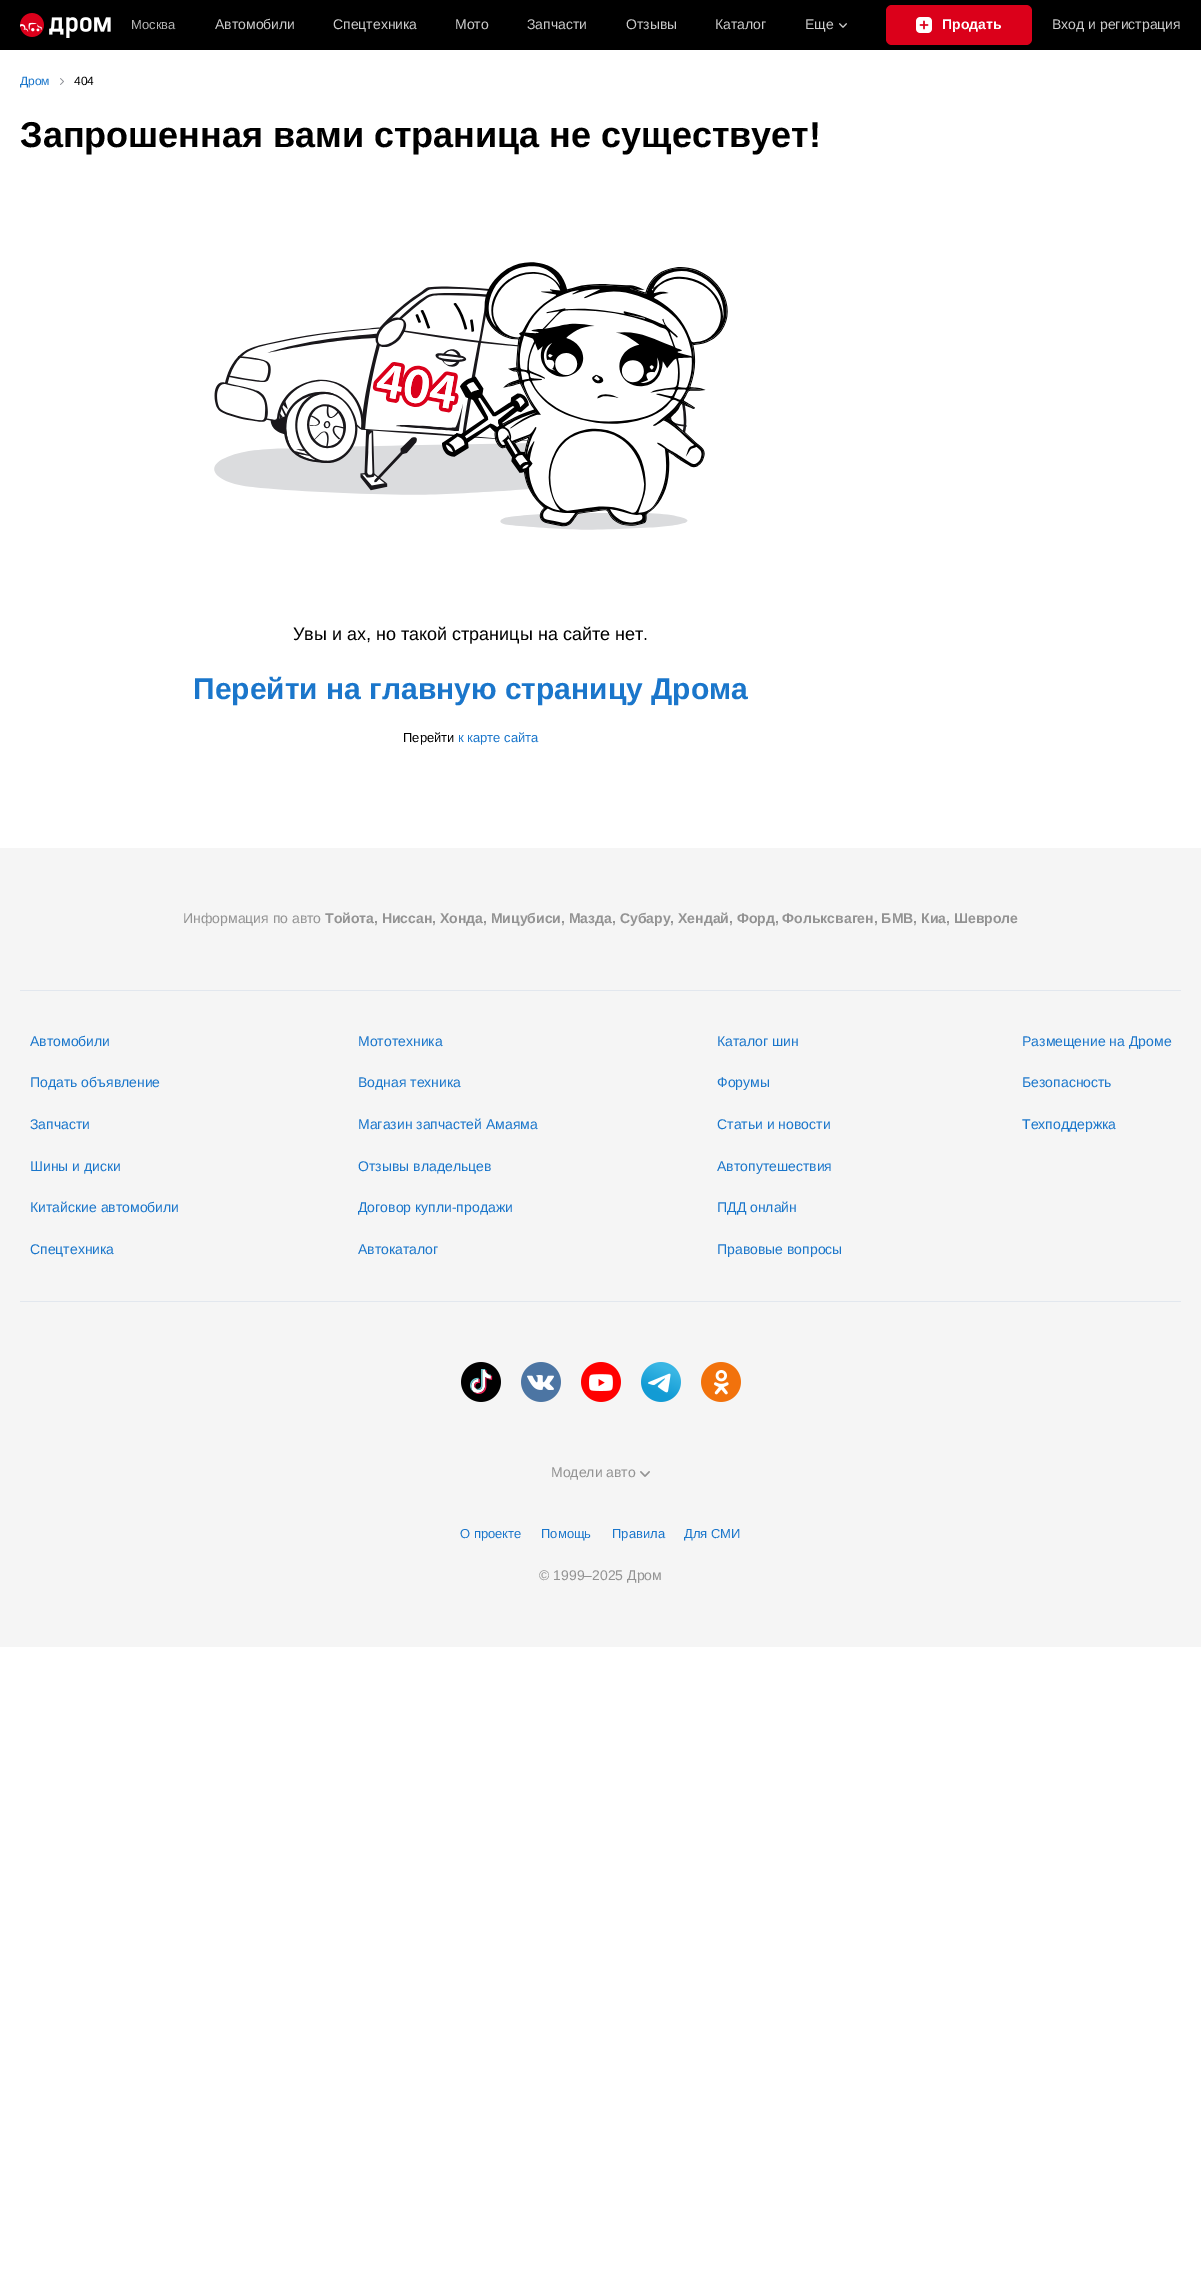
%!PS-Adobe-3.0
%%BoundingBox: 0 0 1201 2293
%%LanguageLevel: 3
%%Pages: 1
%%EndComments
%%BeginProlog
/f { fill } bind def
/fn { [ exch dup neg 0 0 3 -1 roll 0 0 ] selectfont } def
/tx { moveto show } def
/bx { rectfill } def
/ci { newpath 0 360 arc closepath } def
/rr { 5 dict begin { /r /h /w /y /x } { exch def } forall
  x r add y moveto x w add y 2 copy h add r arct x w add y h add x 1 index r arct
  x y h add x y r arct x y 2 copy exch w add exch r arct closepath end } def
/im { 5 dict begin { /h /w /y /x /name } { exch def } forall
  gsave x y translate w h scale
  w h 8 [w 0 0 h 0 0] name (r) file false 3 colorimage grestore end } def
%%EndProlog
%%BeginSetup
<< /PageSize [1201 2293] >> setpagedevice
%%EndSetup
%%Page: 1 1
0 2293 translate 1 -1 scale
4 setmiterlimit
1 setgray
0 0 1201 2293 bx
0 setgray
0 0 1201 50 bx
(image0.raw) 20 13 91 25 im
/LiberationSans-Regular 13 fn
0.702 setgray
(Москва) 131 29 tx
/LiberationSans-Regular 14 fn
0.8 setgray
(Автомобили) 215 29 tx
(Спецтехника) 333 29 tx
(Мото) 455 29 tx
(Запчасти) 527 29 tx
(Отзывы) 626 29 tx
(Каталог) 715 29 tx
(Еще) 805 29 tx
(image1.raw) 839 23 8 5 im
0.859 0 0.102 setrgbcolor
886 5 146 40 6 rr f
(image2.raw) 916 17 16 16 im
/LiberationSans-Bold 14 fn
1 setgray
(Продать) 942 29 tx
/LiberationSans-Regular 14 fn
0.8 setgray
(Вход и регистрация) 1052 29 tx
/LiberationSans-Regular 12 fn
0.102 0.463 0.796 setrgbcolor
(Дром) 20 85 tx
(image3.raw) 60 78 4 7 im
0 setgray
(404) 74 85 tx
/LiberationSans-Bold 36 fn
(Запрошенная вами страница не существует!) 20 147 tx
(image4.raw) 214 262 514 268 im
/LiberationSans-Regular 18 fn
(Увы и ах, но такой страницы на сайте нет.) 293 640 tx
/LiberationSans-Bold 30 fn
0.102 0.463 0.796 setrgbcolor
(Перейти на главную страницу Дрома) 193 699 tx
/LiberationSans-Regular 13 fn
0 setgray
(Перейти) 403 742 tx
0.102 0.463 0.796 setrgbcolor
(к карте сайта) 458 742 tx
0.961 setgray
0 848 1201 799 bx
/LiberationSans-Regular 14 fn
0.576 setgray
(Информация по авто) 183 923 tx
/LiberationSans-Bold 14 fn
(Тойота, Ниссан, Хонда, Мицубиси, Мазда, Субару, Хендай, Форд, Фольксваген, БМВ, Киа, Шевроле) 325 923 tx
0.886 0.906 0.933 setrgbcolor
20 990 1161 1 bx
20 1301 1161 1 bx
/LiberationSans-Regular 14 fn
0.102 0.463 0.796 setrgbcolor
(Автомобили) 30 1046 tx
(Подать объявление) 30 1087 tx
(Запчасти) 30 1129 tx
(Шины и диски) 30 1171 tx
(Китайские автомобили) 30 1212 tx
(Спецтехника) 30 1254 tx
(Мототехника) 358 1046 tx
(Водная техника) 358 1087 tx
(Магазин запчастей Амаяма) 358 1129 tx
(Отзывы владельцев) 358 1171 tx
(Договор купли-продажи) 358 1212 tx
(Автокаталог) 358 1254 tx
(Каталог шин) 717 1046 tx
(Форумы) 717 1087 tx
(Статьи и новости) 717 1129 tx
(Автопутешествия) 717 1171 tx
(ПДД онлайн) 717 1212 tx
(Правовые вопросы) 717 1254 tx
(Размещение на Дроме) 1022 1046 tx
(Безопасность) 1022 1087 tx
(Техподдержка) 1022 1129 tx
1 setgray
481 1382 16 ci f
(image5.raw) 461 1362 40 40 im
541 1382 16 ci f
(image6.raw) 521 1362 40 40 im
601 1382 16 ci f
(image7.raw) 581 1362 40 40 im
661 1382 16 ci f
(image8.raw) 641 1362 40 40 im
721 1382 16 ci f
(image9.raw) 701 1362 40 40 im
0.576 setgray
(Модели авто) 551 1477 tx
(image10.raw) 640 1471 10 6 im
/LiberationSans-Regular 13 fn
0.102 0.463 0.796 setrgbcolor
(О проекте) 460 1538 tx
(Помощь) 541 1538 tx
(Правила) 612 1538 tx
(Для СМИ) 684 1538 tx
/LiberationSans-Regular 14 fn
0.576 setgray
(© 1999–2025 Дром) 539 1580 tx
showpage
%%EOF
